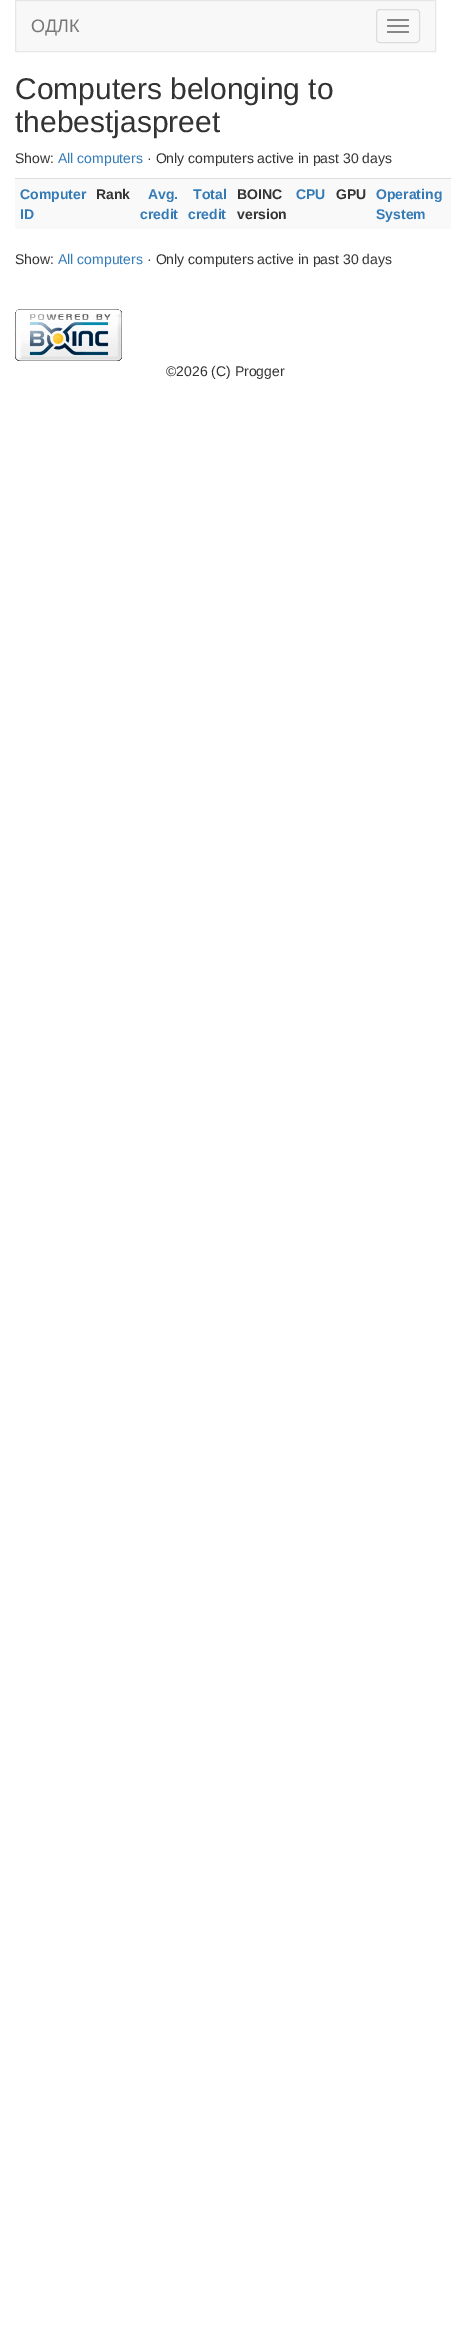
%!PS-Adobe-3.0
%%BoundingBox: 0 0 451 2327
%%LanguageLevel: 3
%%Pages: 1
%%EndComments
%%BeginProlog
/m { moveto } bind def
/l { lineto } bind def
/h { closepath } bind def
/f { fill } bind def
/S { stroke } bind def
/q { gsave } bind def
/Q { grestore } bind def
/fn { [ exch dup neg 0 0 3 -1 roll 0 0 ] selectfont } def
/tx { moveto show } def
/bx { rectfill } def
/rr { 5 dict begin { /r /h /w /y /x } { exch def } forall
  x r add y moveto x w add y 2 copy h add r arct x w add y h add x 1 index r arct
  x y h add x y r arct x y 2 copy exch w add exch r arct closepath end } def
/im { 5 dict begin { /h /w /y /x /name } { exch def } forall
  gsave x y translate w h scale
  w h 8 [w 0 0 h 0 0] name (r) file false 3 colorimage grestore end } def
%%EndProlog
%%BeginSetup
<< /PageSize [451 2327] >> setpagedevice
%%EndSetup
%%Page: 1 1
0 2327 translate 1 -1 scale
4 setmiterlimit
1 setgray
0 0 451 2327 bx
0.973 setgray
15.5 0.5 m 435.5 0.5 l 435.5 51.5 l 15.5 51.5 l h q f Q
0.906 setgray
S
/LiberationSans-Regular 18 fn
0.467 setgray
(ОДЛК) 31 32 tx
0.867 setgray
376.5 9.5 43 33 3.5 rr S
0.533 setgray
387 19 22 2 1 rr f
387 25 22 2 1 rr f
387 31 22 2 1 rr f
/LiberationSans-Regular 30 fn
0.2 setgray
(Computers belonging to) 15 99 tx
(thebestjaspreet) 15 132 tx
/LiberationSans-Regular 14 fn
(Show:) 15 163 tx
0.2 0.478 0.718 setrgbcolor
(All computers) 58 163 tx
0.2 setgray
(· Only computers active in past 30 days) 147 163 tx
0.976 setgray
15 179 436 50 bx
0.867 setgray
15 178 436 1 bx
/LiberationSans-Bold 14 fn
0.2 0.478 0.718 setrgbcolor
(Computer) 20 199 tx
(ID) 20 219 tx
0.2 setgray
(Rank) 96 199 tx
0.2 0.478 0.718 setrgbcolor
(Avg.) 148 199 tx
(credit) 140 219 tx
(Total) 193 199 tx
(credit) 188 219 tx
0.2 setgray
(BOINC) 237 199 tx
(version) 237 219 tx
0.2 0.478 0.718 setrgbcolor
(CPU) 296 199 tx
0.2 setgray
(GPU) 336 199 tx
0.2 0.478 0.718 setrgbcolor
(Operating) 376 199 tx
(System) 376 219 tx
/LiberationSans-Regular 14 fn
0.2 setgray
(Show:) 15 264 tx
0.2 0.478 0.718 setrgbcolor
(All computers) 58 264 tx
0.2 setgray
(· Only computers active in past 30 days) 147 264 tx
(image0.raw) 15 309 107 52 im
(©2026 \(C\) Progger) 166 376 tx
showpage
%%EOF
